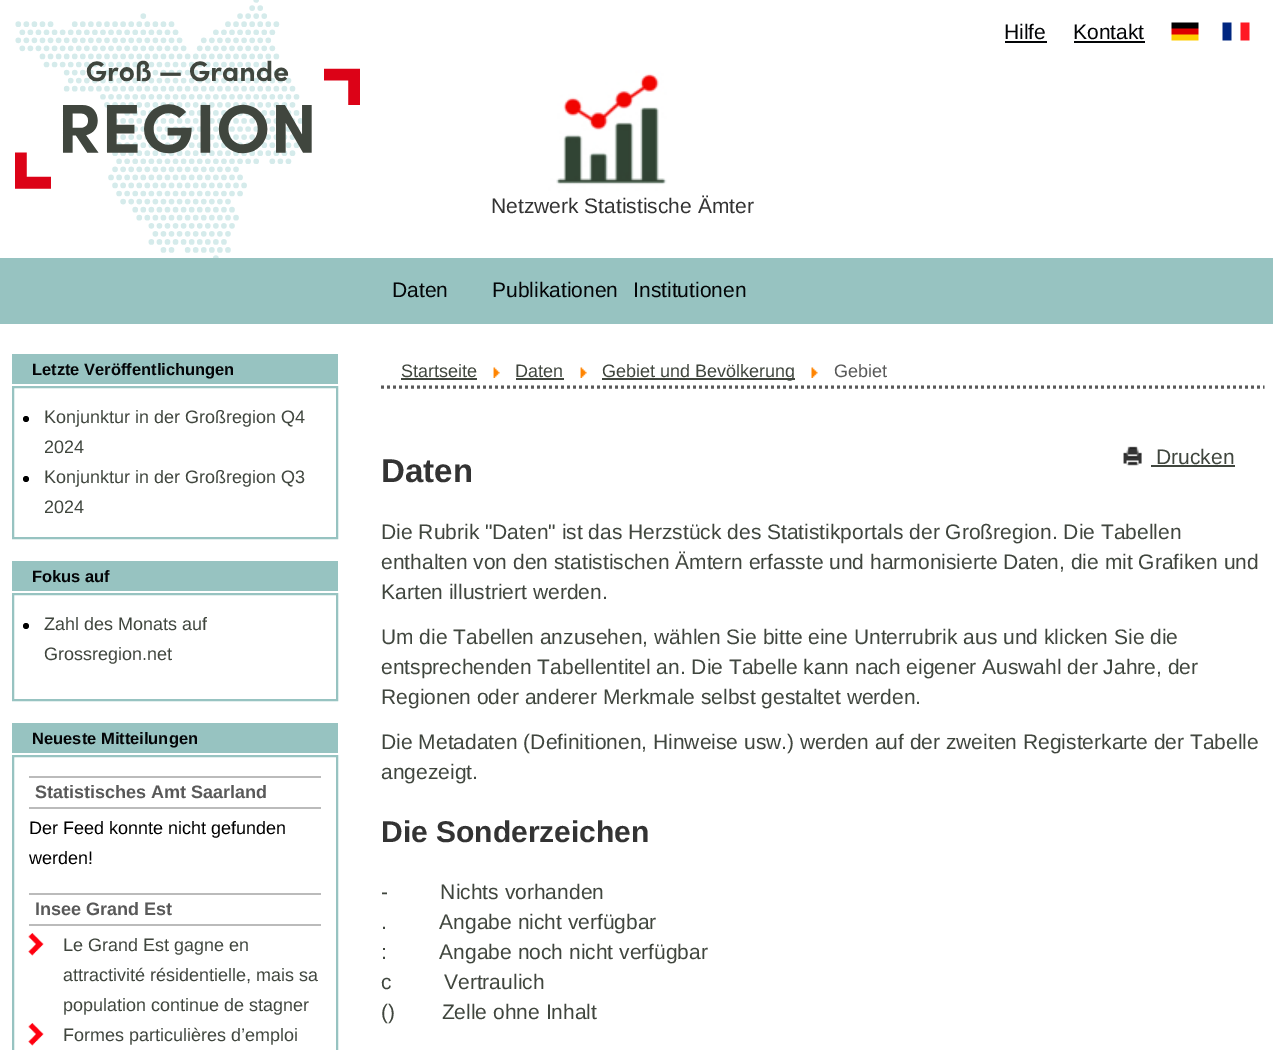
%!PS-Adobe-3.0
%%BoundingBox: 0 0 1273 1050
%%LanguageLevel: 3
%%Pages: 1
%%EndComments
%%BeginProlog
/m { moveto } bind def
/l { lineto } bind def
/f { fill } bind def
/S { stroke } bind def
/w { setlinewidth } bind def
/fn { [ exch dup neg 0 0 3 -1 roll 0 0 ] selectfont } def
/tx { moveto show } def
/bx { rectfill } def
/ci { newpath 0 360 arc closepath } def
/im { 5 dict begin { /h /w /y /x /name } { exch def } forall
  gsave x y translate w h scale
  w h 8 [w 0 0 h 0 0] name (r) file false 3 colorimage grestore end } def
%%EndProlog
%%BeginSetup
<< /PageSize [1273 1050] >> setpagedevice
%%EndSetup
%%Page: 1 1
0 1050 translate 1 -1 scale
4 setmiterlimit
1 setgray
0 0 1273 1050 bx
(image0.raw) 15 0 652 258 im
/LiberationSans-Regular 21 fn
0.012 0.02 0.027 setrgbcolor
(Hilfe) 1004 39 tx
1005 41 42 2 bx
(Kontakt) 1073 39 tx
1074 41 71 2 bx
(image1.raw) 1171 22 28 19 im
(image2.raw) 1222 22 28 19 im
0.2 setgray
(Netzwerk Statistische Ämter) 491 213 tx
0.592 0.765 0.757 setrgbcolor
0 258 1273 66 bx
0.012 0.02 0.027 setrgbcolor
(Daten) 392 297 tx
(Publikationen) 492 297 tx
(Institutionen) 633 297 tx
0.592 0.765 0.757 setrgbcolor
12 354 326 30 bx
/LiberationSans-Bold 16.5 fn
0.012 0.02 0.027 setrgbcolor
(Letzte Veröffentlichungen) 32 375 tx
0.592 0.765 0.757 setrgbcolor
2 w
13 387 324 151 rectstroke
0 setgray
26 419 3 ci f
/LiberationSans-Regular 18 fn
0.251 0.275 0.243 setrgbcolor
(Konjunktur in der Großregion Q4) 44 423 tx
(2024) 44 453 tx
0 setgray
26 479 3 ci f
0.251 0.275 0.243 setrgbcolor
(Konjunktur in der Großregion Q3) 44 483 tx
(2024) 44 513 tx
0.592 0.765 0.757 setrgbcolor
12 561 326 30 bx
/LiberationSans-Bold 16.5 fn
0.012 0.02 0.027 setrgbcolor
(Fokus auf) 32 582 tx
0.592 0.765 0.757 setrgbcolor
13 594 324 106 rectstroke
0 setgray
26 626 3 ci f
/LiberationSans-Regular 18 fn
0.251 0.275 0.243 setrgbcolor
(Zahl des Monats auf) 44 630 tx
(Grossregion.net) 44 660 tx
0.592 0.765 0.757 setrgbcolor
12 723 326 30 bx
/LiberationSans-Bold 16.5 fn
0.012 0.02 0.027 setrgbcolor
(Neueste Mitteilungen) 32 744 tx
0.592 0.765 0.757 setrgbcolor
13 756 324 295 rectstroke
0.733 setgray
29 776 292 2 bx
29 807 292 2 bx
/LiberationSans-Bold 18 fn
0.349 setgray
(Statistisches Amt Saarland) 35 798 tx
/LiberationSans-Regular 18 fn
0 setgray
(Der Feed konnte nicht gefunden) 29 834 tx
(werden!) 29 864 tx
0.733 setgray
29 893 292 2 bx
29 924 292 2 bx
/LiberationSans-Bold 18 fn
0.349 setgray
(Insee Grand Est) 35 915 tx
(image3.raw) 28 933 16 23 im
/LiberationSans-Regular 18 fn
0.251 0.275 0.243 setrgbcolor
(Le Grand Est gagne en) 63 951 tx
(attractivité résidentielle, mais sa) 63 981 tx
(population continue de stagner) 63 1011 tx
(image3.raw) 28 1023 16 23 im
(Formes particulières d’emploi) 63 1041 tx
0.349 setgray
3 w
[3 3] 0 setdash
381 387 m 1264.5 387 l S
0.251 0.275 0.243 setrgbcolor
(Startseite) 401 377 tx
401 378 76 2 bx
(image4.raw) 493 367 7 11 im
(Daten) 515 377 tx
516 378 48 2 bx
(image4.raw) 580 367 7 11 im
602 378 193 2 bx
(Gebiet und Bevölkerung) 602 377 tx
(image5.raw) 811 367 7 11 im
0.349 setgray
(Gebiet) 834 377 tx
(image6.raw) 1123 446 19 20 im
/LiberationSans-Regular 21 fn
0.251 0.275 0.243 setrgbcolor
(Drucken) 1156 464 tx
1151 465 84 2 bx
/LiberationSans-Bold 33 fn
0.2 setgray
(Daten) 381 482 tx
/LiberationSans-Regular 21 fn
0.251 0.275 0.243 setrgbcolor
(Die Rubrik "Daten" ist das Herzstück des Statistikportals der Großregion. Die Tabellen) 381 539 tx
(enthalten von den statistischen Ämtern erfasste und harmonisierte Daten, die mit Grafiken und) 381 569 tx
(Karten illustriert werden.) 381 599 tx
(Um die Tabellen anzusehen, wählen Sie bitte eine Unterrubrik aus und klicken Sie die) 381 644 tx
(entsprechenden Tabellentitel an. Die Tabelle kann nach eigener Auswahl der Jahre, der) 381 674 tx
(Regionen oder anderer Merkmale selbst gestaltet werden.) 381 704 tx
(Die Metadaten \(Definitionen, Hinweise usw.\) werden auf der zweiten Registerkarte der Tabelle) 381 749 tx
(angezeigt.) 381 779 tx
/LiberationSans-Bold 30 fn
0.2 setgray
(Die Sonderzeichen) 381 842 tx
/LiberationSans-Regular 21 fn
0.251 0.275 0.243 setrgbcolor
(-         Nichts vorhanden) 381 899 tx
(.         Angabe nicht verfügbar) 381 929 tx
(:         Angabe noch nicht verfügbar) 381 959 tx
(c         Vertraulich) 381 989 tx
(\(\)        Zelle ohne Inhalt) 381 1019 tx
showpage
%%EOF
